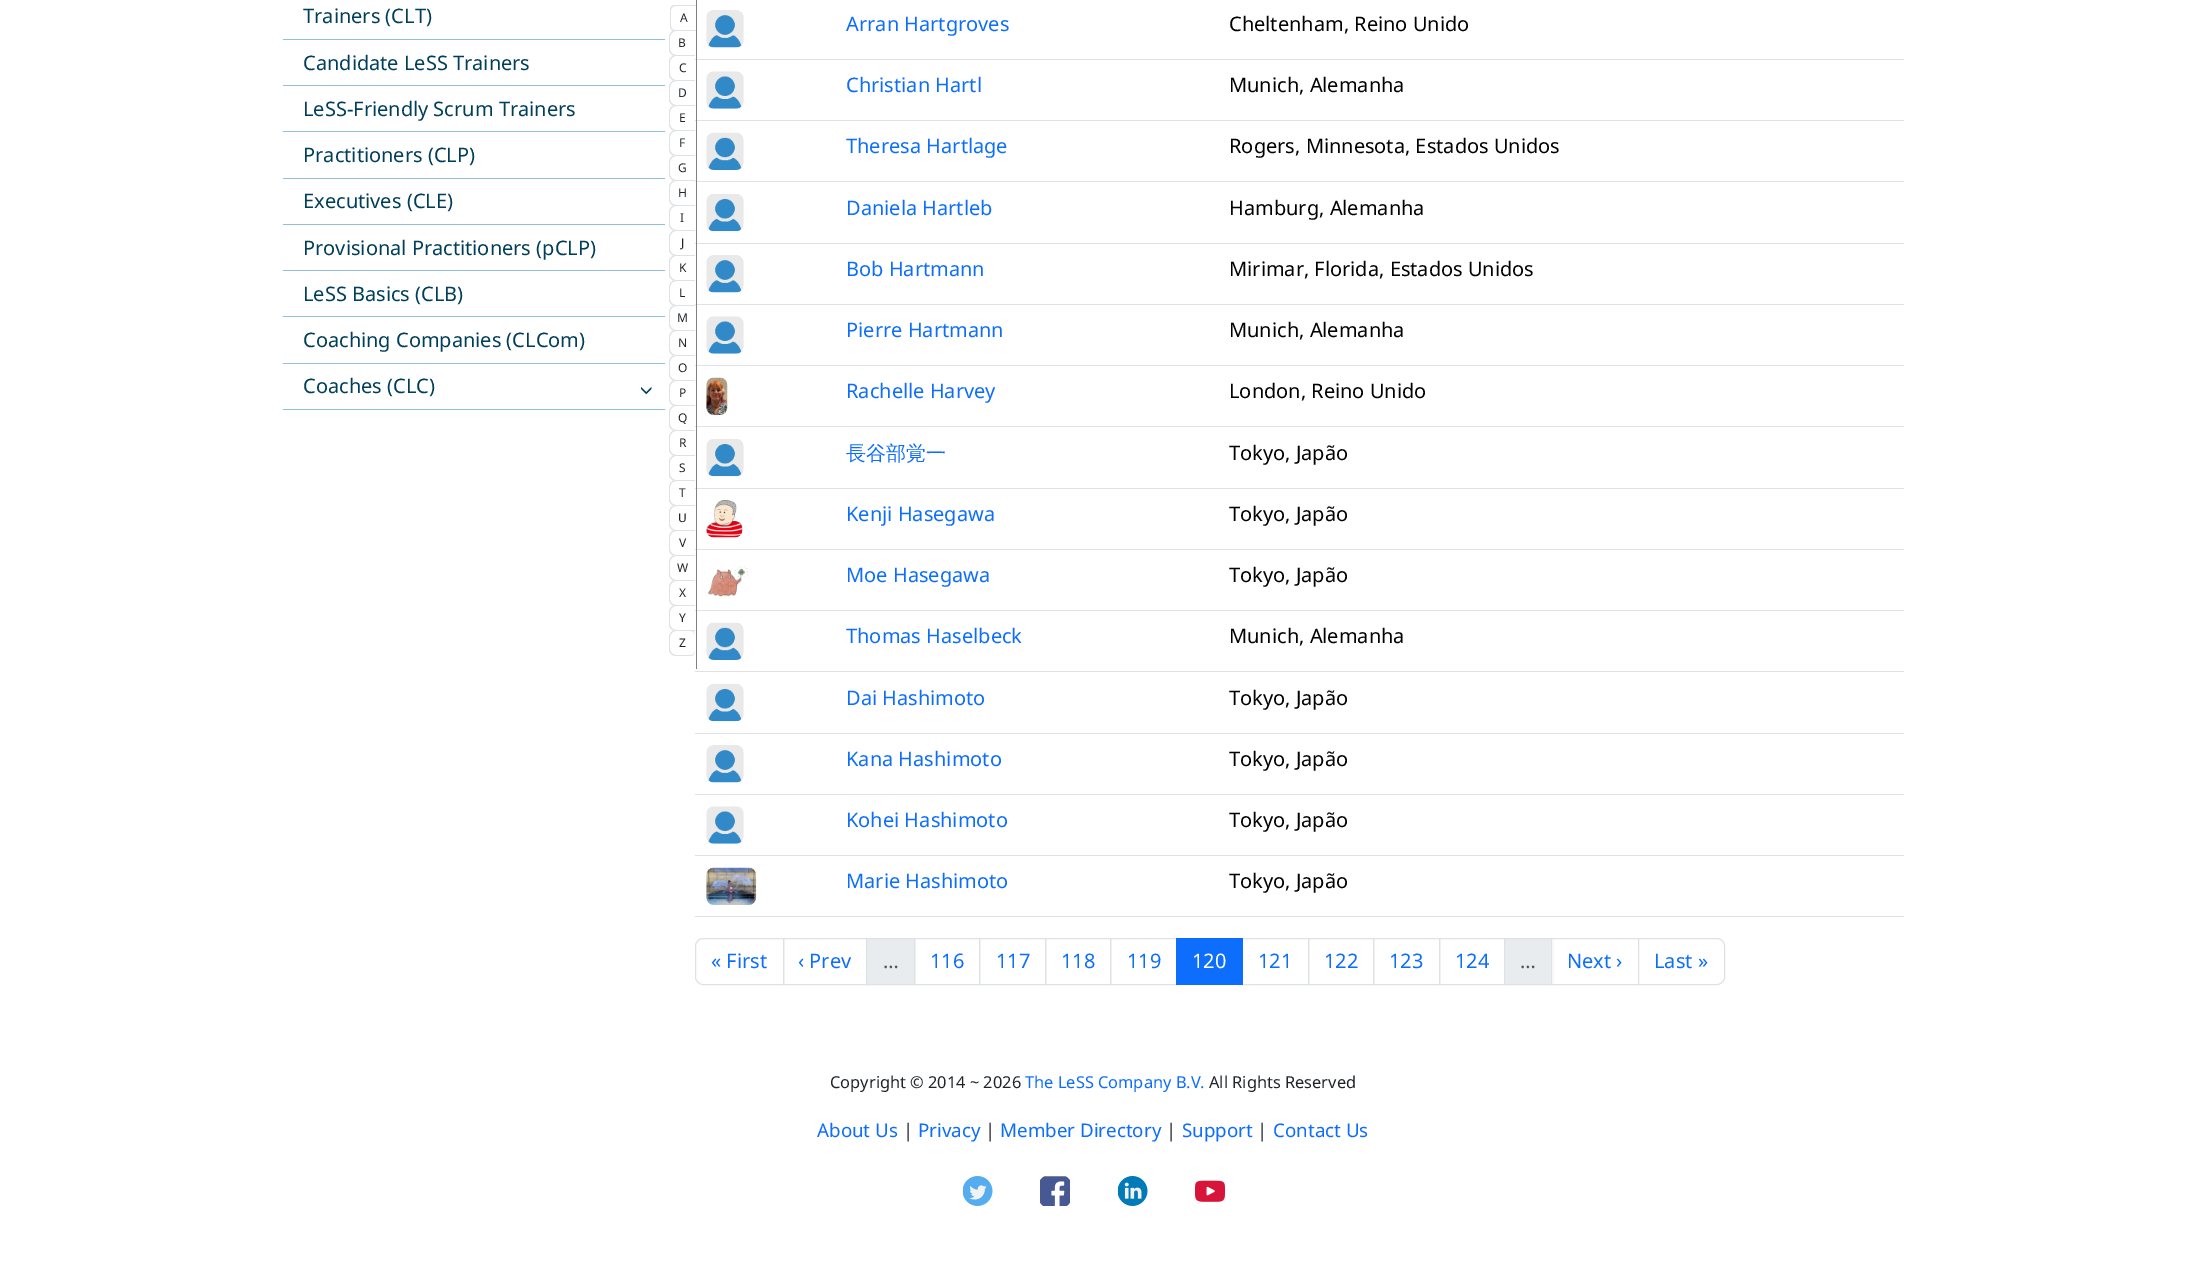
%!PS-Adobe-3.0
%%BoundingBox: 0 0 2185 1267
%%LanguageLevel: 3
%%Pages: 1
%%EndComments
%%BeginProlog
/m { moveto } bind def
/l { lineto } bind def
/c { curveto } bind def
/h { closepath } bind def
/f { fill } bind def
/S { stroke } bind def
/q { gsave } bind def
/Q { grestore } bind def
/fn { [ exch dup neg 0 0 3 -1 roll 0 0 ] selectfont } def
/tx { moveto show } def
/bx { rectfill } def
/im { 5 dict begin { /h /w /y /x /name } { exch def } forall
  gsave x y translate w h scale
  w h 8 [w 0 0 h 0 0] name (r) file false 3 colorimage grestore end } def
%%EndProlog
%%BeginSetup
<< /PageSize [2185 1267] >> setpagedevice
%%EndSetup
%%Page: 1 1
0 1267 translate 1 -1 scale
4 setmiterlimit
1 setgray
0 0 2185 1267 bx
0.58 0.753 0.824 setrgbcolor
283 39 382 1 bx
/NotoSans-Regular 20 fn
0 0.247 0.349 setrgbcolor
(Trainers \(CLT\)) 303 23 tx
0.58 0.753 0.824 setrgbcolor
283 85 382 1 bx
0 0.247 0.349 setrgbcolor
(Candidate LeSS Trainers) 303 70 tx
0.58 0.753 0.824 setrgbcolor
283 131 382 1 bx
0 0.247 0.349 setrgbcolor
(LeSS-Friendly Scrum Trainers) 303 116 tx
0.58 0.753 0.824 setrgbcolor
283 178 382 1 bx
0 0.247 0.349 setrgbcolor
(Practitioners \(CLP\)) 303 162 tx
0.58 0.753 0.824 setrgbcolor
283 224 382 1 bx
0 0.247 0.349 setrgbcolor
(Executives \(CLE\)) 303 208 tx
0.58 0.753 0.824 setrgbcolor
283 270 382 1 bx
0 0.247 0.349 setrgbcolor
(Provisional Practitioners \(pCLP\)) 303 255 tx
0.58 0.753 0.824 setrgbcolor
283 316 382 1 bx
0 0.247 0.349 setrgbcolor
(LeSS Basics \(CLB\)) 303 301 tx
0.58 0.753 0.824 setrgbcolor
283 363 382 1 bx
0 0.247 0.349 setrgbcolor
(Coaching Companies \(CLCom\)) 303 347 tx
0.58 0.753 0.824 setrgbcolor
283 409 382 1 bx
0 0.247 0.349 setrgbcolor
(Coaches \(CLC\)) 303 393 tx
(image0.raw) 641 387 11 8 im
0.871 0.886 0.902 setrgbcolor
695 59 1209 1 bx
695 120 1209 1 bx
695 181 1209 1 bx
695 243 1209 1 bx
695 304 1209 1 bx
695 365 1209 1 bx
695 426 1209 1 bx
695 488 1209 1 bx
695 549 1209 1 bx
695 610 1209 1 bx
0.502 setgray
696 0 1 669 bx
0.871 0.886 0.902 setrgbcolor
675 5 m 696 5 l 696 31 l 675 31 l 672 31 670 29 670 26 c 670 10 l 670 7 672 5 675 5 c h 675 6 m 696 6 l 696 30 l 675 30 l 673 30 671 28.5 671 26 c 671 10 l 671 8 673 6 675 6 c h eofill
/NotoSans-Regular 12 fn
0.129 0.145 0.161 setrgbcolor
(A) 680 22 tx
1 setgray
677 30 m 695 30 l 695 56 l 677 56 l 672.5 56 669 52.5 669 48 c 669 38 l 669 33.5 672.5 30 677 30 c h f
0.871 0.886 0.902 setrgbcolor
676 30 m 695 30 l 695 56 l 676 56 l 672 56 669 53 669 49 c 669 37.5 l 669 33.5 672 30 676 30 c h 676 31 m 695 31 l 695 55 l 676 55 l 673 55 670 52 670 49 c 670 37.5 l 670 34 673 31 676 31 c h eofill
0.129 0.145 0.161 setrgbcolor
(B) 678 47 tx
1 setgray
677 55 m 695 55 l 695 81 l 677 81 l 672.5 81 669 77.5 669 73 c 669 63 l 669 58.5 672.5 55 677 55 c h f
0.871 0.886 0.902 setrgbcolor
676 55 m 695 55 l 695 81 l 676 81 l 672 81 669 78 669 74 c 669 62.5 l 669 58.5 672 55 676 55 c h 676 56 m 695 56 l 695 80 l 676 80 l 673 80 670 77 670 74 c 670 62.5 l 670 59 673 56 676 56 c h eofill
0.129 0.145 0.161 setrgbcolor
(C) 679 72 tx
1 setgray
677 80 m 695 80 l 695 106 l 677 106 l 672.5 106 669 102.5 669 98 c 669 88 l 669 83.5 672.5 80 677 80 c h f
0.871 0.886 0.902 setrgbcolor
676 80 m 695 80 l 695 106 l 676 106 l 672 106 669 103 669 99 c 669 87.5 l 669 83.5 672 80 676 80 c h 676 81 m 695 81 l 695 105 l 676 105 l 673 105 670 102 670 99 c 670 87.5 l 670 84 673 81 676 81 c h eofill
0.129 0.145 0.161 setrgbcolor
(D) 678 97 tx
1 setgray
677 105 m 695 105 l 695 131 l 677 131 l 672.5 131 669 127.5 669 123 c 669 113 l 669 108.5 672.5 105 677 105 c h f
0.871 0.886 0.902 setrgbcolor
676 105 m 695 105 l 695 131 l 676 131 l 672 131 669 128 669 124 c 669 112.5 l 669 108.5 672 105 676 105 c h 676 106 m 695 106 l 695 130 l 676 130 l 673 130 670 127 670 124 c 670 112.5 l 670 109 673 106 676 106 c h eofill
0.129 0.145 0.161 setrgbcolor
(E) 679 122 tx
1 setgray
677 130 m 695 130 l 695 156 l 677 156 l 672.5 156 669 152.5 669 148 c 669 138 l 669 133.5 672.5 130 677 130 c h f
0.871 0.886 0.902 setrgbcolor
676 130 m 695 130 l 695 156 l 676 156 l 672 156 669 153 669 149 c 669 137.5 l 669 133.5 672 130 676 130 c h 676 131 m 695 131 l 695 155 l 676 155 l 673 155 670 152 670 149 c 670 137.5 l 670 134 673 131 676 131 c h eofill
0.129 0.145 0.161 setrgbcolor
(F) 679 147 tx
1 setgray
677 155 m 695 155 l 695 181 l 677 181 l 672.5 181 669 177.5 669 173 c 669 163 l 669 158.5 672.5 155 677 155 c h f
0.871 0.886 0.902 setrgbcolor
676 155 m 695 155 l 695 181 l 676 181 l 672 181 669 178 669 174 c 669 162.5 l 669 158.5 672 155 676 155 c h 676 156 m 695 156 l 695 180 l 676 180 l 673 180 670 177 670 174 c 670 162.5 l 670 159 673 156 676 156 c h eofill
0.129 0.145 0.161 setrgbcolor
(G) 678 172 tx
1 setgray
677 180 m 695 180 l 695 206 l 677 206 l 672.5 206 669 202.5 669 198 c 669 188 l 669 183.5 672.5 180 677 180 c h f
0.871 0.886 0.902 setrgbcolor
676 180 m 695 180 l 695 206 l 676 206 l 672 206 669 203 669 199 c 669 187.5 l 669 183.5 672 180 676 180 c h 676 181 m 695 181 l 695 205 l 676 205 l 673 205 670 202 670 199 c 670 187.5 l 670 184 673 181 676 181 c h eofill
0.129 0.145 0.161 setrgbcolor
(H) 678 197 tx
1 setgray
677 205 m 695 205 l 695 231 l 677 231 l 672.5 231 669 227.5 669 223 c 669 213 l 669 208.5 672.5 205 677 205 c h f
0.871 0.886 0.902 setrgbcolor
676 205 m 695 205 l 695 231 l 676 231 l 672 231 669 228 669 224 c 669 212.5 l 669 208.5 672 205 676 205 c h 676 206 m 695 206 l 695 230 l 676 230 l 673 230 670 227 670 224 c 670 212.5 l 670 209 673 206 676 206 c h eofill
0.129 0.145 0.161 setrgbcolor
(I) 680 222 tx
1 setgray
677 230 m 695 230 l 695 256 l 677 256 l 672.5 256 669 252.5 669 248 c 669 238 l 669 233.5 672.5 230 677 230 c h f
0.871 0.886 0.902 setrgbcolor
676 230 m 695 230 l 695 256 l 676 256 l 672 256 669 253 669 249 c 669 237.5 l 669 233.5 672 230 676 230 c h 676 231 m 695 231 l 695 255 l 676 255 l 673 255 670 252 670 249 c 670 237.5 l 670 234 673 231 676 231 c h eofill
0.129 0.145 0.161 setrgbcolor
(J) 681 247 tx
1 setgray
677 255 m 695 255 l 695 281 l 677 281 l 672.5 281 669 277.5 669 273 c 669 263 l 669 258.5 672.5 255 677 255 c h f
0.871 0.886 0.902 setrgbcolor
676 255 m 695 255 l 695 281 l 676 281 l 672 281 669 278 669 274 c 669 262.5 l 669 258.5 672 255 676 255 c h 676 256 m 695 256 l 695 280 l 676 280 l 673 280 670 277 670 274 c 670 262.5 l 670 259 673 256 676 256 c h eofill
0.129 0.145 0.161 setrgbcolor
(K) 679 272 tx
1 setgray
677 280 m 695 280 l 695 306 l 677 306 l 672.5 306 669 302.5 669 298 c 669 288 l 669 283.5 672.5 280 677 280 c h f
0.871 0.886 0.902 setrgbcolor
676 280 m 695 280 l 695 306 l 676 306 l 672 306 669 303 669 299 c 669 287.5 l 669 283.5 672 280 676 280 c h 676 281 m 695 281 l 695 305 l 676 305 l 673 305 670 302 670 299 c 670 287.5 l 670 284 673 281 676 281 c h eofill
0.129 0.145 0.161 setrgbcolor
(L) 679 297 tx
1 setgray
677 305 m 695 305 l 695 331 l 677 331 l 672.5 331 669 327.5 669 323 c 669 313 l 669 308.5 672.5 305 677 305 c h f
0.871 0.886 0.902 setrgbcolor
676 305 m 695 305 l 695 331 l 676 331 l 672 331 669 328 669 324 c 669 312.5 l 669 308.5 672 305 676 305 c h 676 306 m 695 306 l 695 330 l 676 330 l 673 330 670 327 670 324 c 670 312.5 l 670 309 673 306 676 306 c h eofill
0.129 0.145 0.161 setrgbcolor
(M) 677 322 tx
1 setgray
677 330 m 695 330 l 695 356 l 677 356 l 672.5 356 669 352.5 669 348 c 669 338 l 669 333.5 672.5 330 677 330 c h f
0.871 0.886 0.902 setrgbcolor
676 330 m 695 330 l 695 356 l 676 356 l 672 356 669 353 669 349 c 669 337.5 l 669 333.5 672 330 676 330 c h 676 331 m 695 331 l 695 355 l 676 355 l 673 355 670 352 670 349 c 670 337.5 l 670 334 673 331 676 331 c h eofill
0.129 0.145 0.161 setrgbcolor
(N) 678 347 tx
1 setgray
677 355 m 695 355 l 695 381 l 677 381 l 672.5 381 669 377.5 669 373 c 669 363 l 669 358.5 672.5 355 677 355 c h f
0.871 0.886 0.902 setrgbcolor
676 355 m 695 355 l 695 381 l 676 381 l 672 381 669 378 669 374 c 669 362.5 l 669 358.5 672 355 676 355 c h 676 356 m 695 356 l 695 380 l 676 380 l 673 380 670 377 670 374 c 670 362.5 l 670 359 673 356 676 356 c h eofill
0.129 0.145 0.161 setrgbcolor
(O) 678 372 tx
1 setgray
677 380 m 695 380 l 695 406 l 677 406 l 672.5 406 669 402.5 669 398 c 669 388 l 669 383.5 672.5 380 677 380 c h f
0.871 0.886 0.902 setrgbcolor
676 380 m 695 380 l 695 406 l 676 406 l 672 406 669 403 669 399 c 669 387.5 l 669 383.5 672 380 676 380 c h 676 381 m 695 381 l 695 405 l 676 405 l 673 405 670 402 670 399 c 670 387.5 l 670 384 673 381 676 381 c h eofill
0.129 0.145 0.161 setrgbcolor
(P) 679 397 tx
1 setgray
677 405 m 695 405 l 695 431 l 677 431 l 672.5 431 669 427.5 669 423 c 669 413 l 669 408.5 672.5 405 677 405 c h f
0.871 0.886 0.902 setrgbcolor
676 405 m 695 405 l 695 431 l 676 431 l 672 431 669 428 669 424 c 669 412.5 l 669 408.5 672 405 676 405 c h 676 406 m 695 406 l 695 430 l 676 430 l 673 430 670 427 670 424 c 670 412.5 l 670 409 673 406 676 406 c h eofill
0.129 0.145 0.161 setrgbcolor
(Q) 678 422 tx
1 setgray
677 430 m 695 430 l 695 456 l 677 456 l 672.5 456 669 452.5 669 448 c 669 438 l 669 433.5 672.5 430 677 430 c h f
0.871 0.886 0.902 setrgbcolor
676 430 m 695 430 l 695 456 l 676 456 l 672 456 669 453 669 449 c 669 437.5 l 669 433.5 672 430 676 430 c h 676 431 m 695 431 l 695 455 l 676 455 l 673 455 670 452 670 449 c 670 437.5 l 670 434 673 431 676 431 c h eofill
0.129 0.145 0.161 setrgbcolor
(R) 679 447 tx
1 setgray
677 455 m 695 455 l 695 481 l 677 481 l 672.5 481 669 477.5 669 473 c 669 463 l 669 458.5 672.5 455 677 455 c h f
0.871 0.886 0.902 setrgbcolor
676 455 m 695 455 l 695 481 l 676 481 l 672 481 669 478 669 474 c 669 462.5 l 669 458.5 672 455 676 455 c h 676 456 m 695 456 l 695 480 l 676 480 l 673 480 670 477 670 474 c 670 462.5 l 670 459 673 456 676 456 c h eofill
0.129 0.145 0.161 setrgbcolor
(S) 679 472 tx
1 setgray
677 480 m 695 480 l 695 506 l 677 506 l 672.5 506 669 502.5 669 498 c 669 488 l 669 483.5 672.5 480 677 480 c h f
0.871 0.886 0.902 setrgbcolor
676 480 m 695 480 l 695 506 l 676 506 l 672 506 669 503 669 499 c 669 487.5 l 669 483.5 672 480 676 480 c h 676 481 m 695 481 l 695 505 l 676 505 l 673 505 670 502 670 499 c 670 487.5 l 670 484 673 481 676 481 c h eofill
0.129 0.145 0.161 setrgbcolor
(T) 679 497 tx
1 setgray
677 505 m 695 505 l 695 531 l 677 531 l 672.5 531 669 527.5 669 523 c 669 513 l 669 508.5 672.5 505 677 505 c h f
0.871 0.886 0.902 setrgbcolor
676 505 m 695 505 l 695 531 l 676 531 l 672 531 669 528 669 524 c 669 512.5 l 669 508.5 672 505 676 505 c h 676 506 m 695 506 l 695 530 l 676 530 l 673 530 670 527 670 524 c 670 512.5 l 670 509 673 506 676 506 c h eofill
0.129 0.145 0.161 setrgbcolor
(U) 678 522 tx
1 setgray
677 530 m 695 530 l 695 556 l 677 556 l 672.5 556 669 552.5 669 548 c 669 538 l 669 533.5 672.5 530 677 530 c h f
0.871 0.886 0.902 setrgbcolor
676 530 m 695 530 l 695 556 l 676 556 l 672 556 669 553 669 549 c 669 537.5 l 669 533.5 672 530 676 530 c h 676 531 m 695 531 l 695 555 l 676 555 l 673 555 670 552 670 549 c 670 537.5 l 670 534 673 531 676 531 c h eofill
0.129 0.145 0.161 setrgbcolor
(V) 679 547 tx
1 setgray
677 555 m 695 555 l 695 581 l 677 581 l 672.5 581 669 577.5 669 573 c 669 563 l 669 558.5 672.5 555 677 555 c h f
0.871 0.886 0.902 setrgbcolor
676 555 m 695 555 l 695 581 l 676 581 l 672 581 669 578 669 574 c 669 562.5 l 669 558.5 672 555 676 555 c h 676 556 m 695 556 l 695 580 l 676 580 l 673 580 670 577 670 574 c 670 562.5 l 670 559 673 556 676 556 c h eofill
0.129 0.145 0.161 setrgbcolor
(W) 677 572 tx
1 setgray
677 580 m 695 580 l 695 606 l 677 606 l 672.5 606 669 602.5 669 598 c 669 588 l 669 583.5 672.5 580 677 580 c h f
0.871 0.886 0.902 setrgbcolor
676 580 m 695 580 l 695 606 l 676 606 l 672 606 669 603 669 599 c 669 587.5 l 669 583.5 672 580 676 580 c h 676 581 m 695 581 l 695 605 l 676 605 l 673 605 670 602 670 599 c 670 587.5 l 670 584 673 581 676 581 c h eofill
0.129 0.145 0.161 setrgbcolor
(X) 679 597 tx
1 setgray
677 605 m 695 605 l 695 631 l 677 631 l 672.5 631 669 627.5 669 623 c 669 613 l 669 608.5 672.5 605 677 605 c h f
0.871 0.886 0.902 setrgbcolor
676 605 m 695 605 l 695 631 l 676 631 l 672 631 669 628 669 624 c 669 612.5 l 669 608.5 672 605 676 605 c h 676 606 m 695 606 l 695 630 l 676 630 l 673 630 670 627 670 624 c 670 612.5 l 670 609 673 606 676 606 c h eofill
0.129 0.145 0.161 setrgbcolor
(Y) 679 622 tx
1 setgray
677 630 m 690 630 l 693 630 695 632 695 635 c 695 651 l 695 654 693 656 690 656 c 677 656 l 672.5 656 669 652.5 669 648 c 669 638 l 669 633.5 672.5 630 677 630 c h f
0.871 0.886 0.902 setrgbcolor
676 630 m 690 630 l 693 630 695 632 695 635 c 695 651 l 695 654 693 656 690 656 c 676 656 l 672 656 669 653 669 649 c 669 637.5 l 669 633.5 672 630 676 630 c h 676 631 m 690 631 l 693 631 695 633 695 635 c 695 651 l 695 653.5 693 655 690 655 c 676 655 l 673 655 670 652 670 649 c 670 637.5 l 670 634 673 631 676 631 c h eofill
0.129 0.145 0.161 setrgbcolor
(Z) 679 647 tx
(image1.raw) 706 10 38 38 im
/NotoSans-Regular 20 fn
0.051 0.431 0.992 setrgbcolor
(Arran Hartgroves) 846 31 tx
0 setgray
(Cheltenham, Reino Unido) 1229 31 tx
(image2.raw) 706 71 38 38 im
0.051 0.431 0.992 setrgbcolor
(Christian Hartl) 846 92 tx
0 setgray
(Munich, Alemanha) 1229 92 tx
(image3.raw) 706 132 38 38 im
0.051 0.431 0.992 setrgbcolor
(Theresa Hartlage) 846 153 tx
0 setgray
(Rogers, Minnesota, Estados Unidos) 1229 153 tx
(image4.raw) 706 194 38 38 im
0.051 0.431 0.992 setrgbcolor
(Daniela Hartleb) 846 215 tx
0 setgray
(Hamburg, Alemanha) 1229 215 tx
(image1.raw) 706 255 38 38 im
0.051 0.431 0.992 setrgbcolor
(Bob Hartmann) 846 276 tx
0 setgray
(Mirimar, Florida, Estados Unidos) 1229 276 tx
(image2.raw) 706 316 38 38 im
0.051 0.431 0.992 setrgbcolor
(Pierre Hartmann) 846 337 tx
0 setgray
(Munich, Alemanha) 1229 337 tx
(image5.raw) 706 377 22 38 im
0.051 0.431 0.992 setrgbcolor
(Rachelle Harvey) 846 398 tx
0 setgray
(London, Reino Unido) 1229 398 tx
(image4.raw) 706 439 38 38 im
/WenQuanYiZenHei-Medium 20 fn
0.051 0.431 0.992 setrgbcolor
(長谷部覚一) 846 460 tx
/NotoSans-Regular 20 fn
0 setgray
(Tokyo, Japão) 1229 460 tx
(image6.raw) 706 500 37 38 im
0.051 0.431 0.992 setrgbcolor
(Kenji Hasegawa) 846 521 tx
0 setgray
(Tokyo, Japão) 1229 521 tx
(image7.raw) 708 566 41 31 im
0.051 0.431 0.992 setrgbcolor
(Moe Hasegawa) 846 582 tx
0 setgray
(Tokyo, Japão) 1229 582 tx
(image3.raw) 706 622 38 38 im
0.051 0.431 0.992 setrgbcolor
(Thomas Haselbeck) 846 643 tx
0.871 0.886 0.902 setrgbcolor
695 671 1209 1 bx
0 setgray
(Munich, Alemanha) 1229 643 tx
(image8.raw) 706 684 38 38 im
0.051 0.431 0.992 setrgbcolor
(Dai Hashimoto) 846 705 tx
0.871 0.886 0.902 setrgbcolor
695 733 1209 1 bx
0 setgray
(Tokyo, Japão) 1229 705 tx
(image1.raw) 706 745 38 38 im
0.051 0.431 0.992 setrgbcolor
(Kana Hashimoto) 846 766 tx
0.871 0.886 0.902 setrgbcolor
695 794 1209 1 bx
0 setgray
(Tokyo, Japão) 1229 766 tx
(image2.raw) 706 806 38 38 im
0.051 0.431 0.992 setrgbcolor
(Kohei Hashimoto) 846 827 tx
0.871 0.886 0.902 setrgbcolor
695 855 1209 1 bx
0 setgray
(Tokyo, Japão) 1229 827 tx
(image9.raw) 706 867 51 38 im
0.051 0.431 0.992 setrgbcolor
(Marie Hashimoto) 846 888 tx
0.871 0.886 0.902 setrgbcolor
695 916 1209 1 bx
0 setgray
(Tokyo, Japão) 1229 888 tx
0.871 0.886 0.902 setrgbcolor
703 938.5 m 783.5 938.5 l 783.5 984.5 l 703 984.5 l 699 984.5 695.5 981 695.5 977 c 695.5 946 l 695.5 942 699 938.5 703 938.5 c h S
0.051 0.431 0.992 setrgbcolor
(« First) 711 968 tx
0.871 0.886 0.902 setrgbcolor
783.5 938.5 84 46 rectstroke
0.051 0.431 0.992 setrgbcolor
(‹ Prev) 798 968 tx
0.914 0.925 0.937 setrgbcolor
866.5 938.5 m 914.5 938.5 l 914.5 984.5 l 866.5 984.5 l h q f Q
0.871 0.886 0.902 setrgbcolor
S
0.325 0.341 0.357 setrgbcolor
(…) 883 968 tx
0.871 0.886 0.902 setrgbcolor
914.5 938.5 65 46 rectstroke
0.051 0.431 0.992 setrgbcolor
(116) 930 968 tx
0.871 0.886 0.902 setrgbcolor
979.5 938.5 66 46 rectstroke
0.051 0.431 0.992 setrgbcolor
(117) 996 968 tx
0.871 0.886 0.902 setrgbcolor
1045.5 938.5 65 46 rectstroke
0.051 0.431 0.992 setrgbcolor
(118) 1061 968 tx
0.871 0.886 0.902 setrgbcolor
1110.5 938.5 67 46 rectstroke
0.051 0.431 0.992 setrgbcolor
(119) 1127 968 tx
0.871 0.886 0.902 setrgbcolor
1241.5 938.5 67 46 rectstroke
0.051 0.431 0.992 setrgbcolor
1176 938 67 47 bx
1 setgray
(120) 1192 968 tx
0.051 0.431 0.992 setrgbcolor
(121) 1258 968 tx
0.871 0.886 0.902 setrgbcolor
1308.5 938.5 65 46 rectstroke
0.051 0.431 0.992 setrgbcolor
(122) 1324 968 tx
0.871 0.886 0.902 setrgbcolor
1373.5 938.5 66 46 rectstroke
0.051 0.431 0.992 setrgbcolor
(123) 1389 968 tx
0.871 0.886 0.902 setrgbcolor
1439.5 938.5 65 46 rectstroke
0.051 0.431 0.992 setrgbcolor
(124) 1455 968 tx
0.914 0.925 0.937 setrgbcolor
1505 939 46 45 bx
0.871 0.886 0.902 setrgbcolor
1504.5 938.5 48 46 rectstroke
0.325 0.341 0.357 setrgbcolor
(…) 1520 968 tx
1 setgray
1552 939 1 45 bx
0.871 0.886 0.902 setrgbcolor
1551.5 938.5 87 46 rectstroke
0.051 0.431 0.992 setrgbcolor
(Next ›) 1567 968 tx
1 setgray
1638.5 938.5 m 1717 938.5 l 1721 938.5 1724.5 942 1724.5 946 c 1724.5 977 l 1724.5 981 1721 984.5 1717 984.5 c 1638.5 984.5 l h q f Q
0.871 0.886 0.902 setrgbcolor
S
0.051 0.431 0.992 setrgbcolor
(Last ») 1654 968 tx
/NotoSans-Regular 16.4 fn
0.129 0.145 0.161 setrgbcolor
(Copyright © 2014 ~ 2026) 830 1088 tx
0.051 0.431 0.992 setrgbcolor
(The LeSS Company B.V.) 1025 1088 tx
0.129 0.145 0.161 setrgbcolor
(All Rights Reserved) 1209 1088 tx
/NotoSans-Regular 18.75 fn
0.051 0.431 0.992 setrgbcolor
(About Us) 817 1137 tx
0.129 0.145 0.161 setrgbcolor
(|) 903 1137 tx
0.051 0.431 0.992 setrgbcolor
(Privacy) 918 1137 tx
0.129 0.145 0.161 setrgbcolor
(|) 985 1137 tx
0.051 0.431 0.992 setrgbcolor
(Member Directory) 1000 1137 tx
0.129 0.145 0.161 setrgbcolor
(|) 1166 1137 tx
0.051 0.431 0.992 setrgbcolor
(Support) 1182 1137 tx
0.129 0.145 0.161 setrgbcolor
(|) 1257 1137 tx
0.051 0.431 0.992 setrgbcolor
(Contact Us) 1273 1137 tx
(image10.raw) 963 1176 30 30 im
(image11.raw) 1040 1176 30 30 im
(image12.raw) 1118 1176 30 30 im
(image13.raw) 1195 1180 30 22 im
showpage
%%EOF
